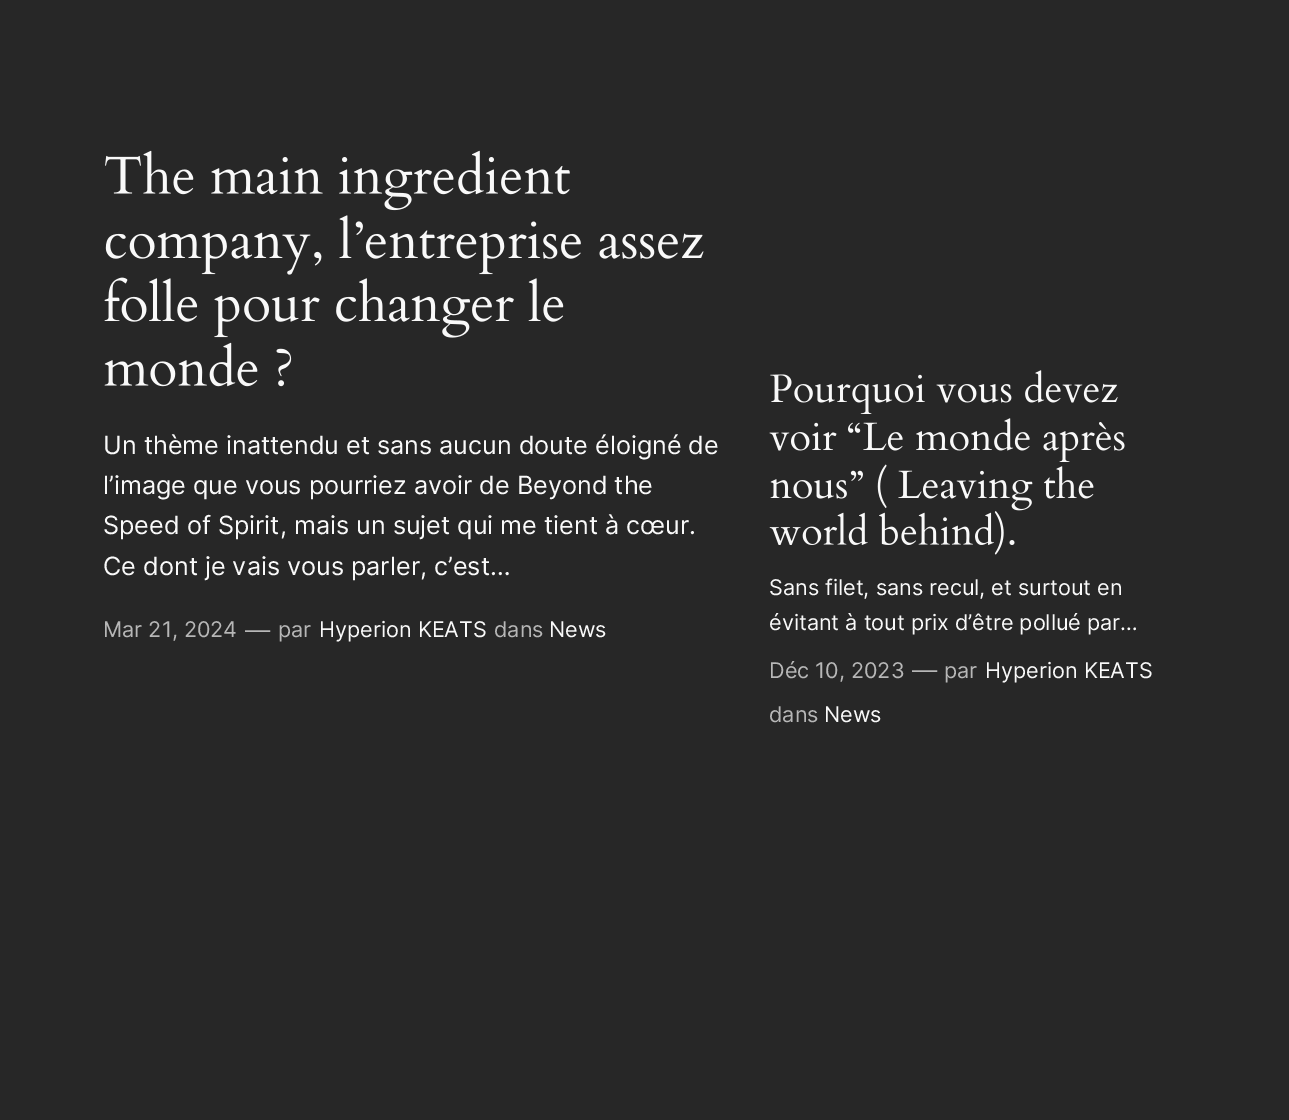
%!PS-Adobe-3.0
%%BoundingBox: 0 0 1289 1120
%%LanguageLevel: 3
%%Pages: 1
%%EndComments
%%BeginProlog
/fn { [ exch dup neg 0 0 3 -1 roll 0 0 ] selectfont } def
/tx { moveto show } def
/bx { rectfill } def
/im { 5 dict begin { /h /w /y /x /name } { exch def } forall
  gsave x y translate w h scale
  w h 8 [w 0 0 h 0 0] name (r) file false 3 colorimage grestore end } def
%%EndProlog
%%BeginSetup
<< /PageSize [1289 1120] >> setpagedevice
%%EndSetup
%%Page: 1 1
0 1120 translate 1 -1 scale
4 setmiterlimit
0.153 setgray
0 0 1289 1120 bx
(image0.raw) 105 150 465 61 im
(image1.raw) 105 215 599 60 im
(image2.raw) 104 277 460 61 im
(image3.raw) 104 342 188 45 im
/Inter-Regular 25.2 fn
0.976 setgray
(Un thème inattendu et sans aucun doute éloigné de) 103 454 tx
(l’image que vous pourriez avoir de Beyond the) 103 494 tx
(Speed of Spirit, mais un sujet qui me tient à cœur.) 103 534 tx
(Ce dont je vais vous parler, c’est…) 103 575 tx
/Inter-Regular 21.6 fn
0.718 setgray
(Mar 21, 2024) 103 637 tx
/Inter-Regular 25.2 fn
(—) 245 639 tx
/Inter-Regular 21.6 fn
(par) 278 637 tx
0.976 setgray
(Hyperion KEATS) 319 637 tx
0.718 setgray
(dans) 494 637 tx
0.976 setgray
(News) 549 637 tx
(image4.raw) 770 370 348 44 im
(image5.raw) 769 418 356 44 im
(image6.raw) 770 464 324 47 im
(image7.raw) 769 511 246 44 im
(Sans filet, sans recul, et surtout en) 769 595 tx
(évitant à tout prix d’être pollué par…) 769 630 tx
0.718 setgray
(Déc 10, 2023) 769 678 tx
/Inter-Regular 25.2 fn
(—) 912 679 tx
/Inter-Regular 21.6 fn
(par) 944 678 tx
0.976 setgray
(Hyperion KEATS) 985 678 tx
0.718 setgray
(dans) 769 722 tx
0.976 setgray
(News) 824 722 tx
showpage
%%EOF
